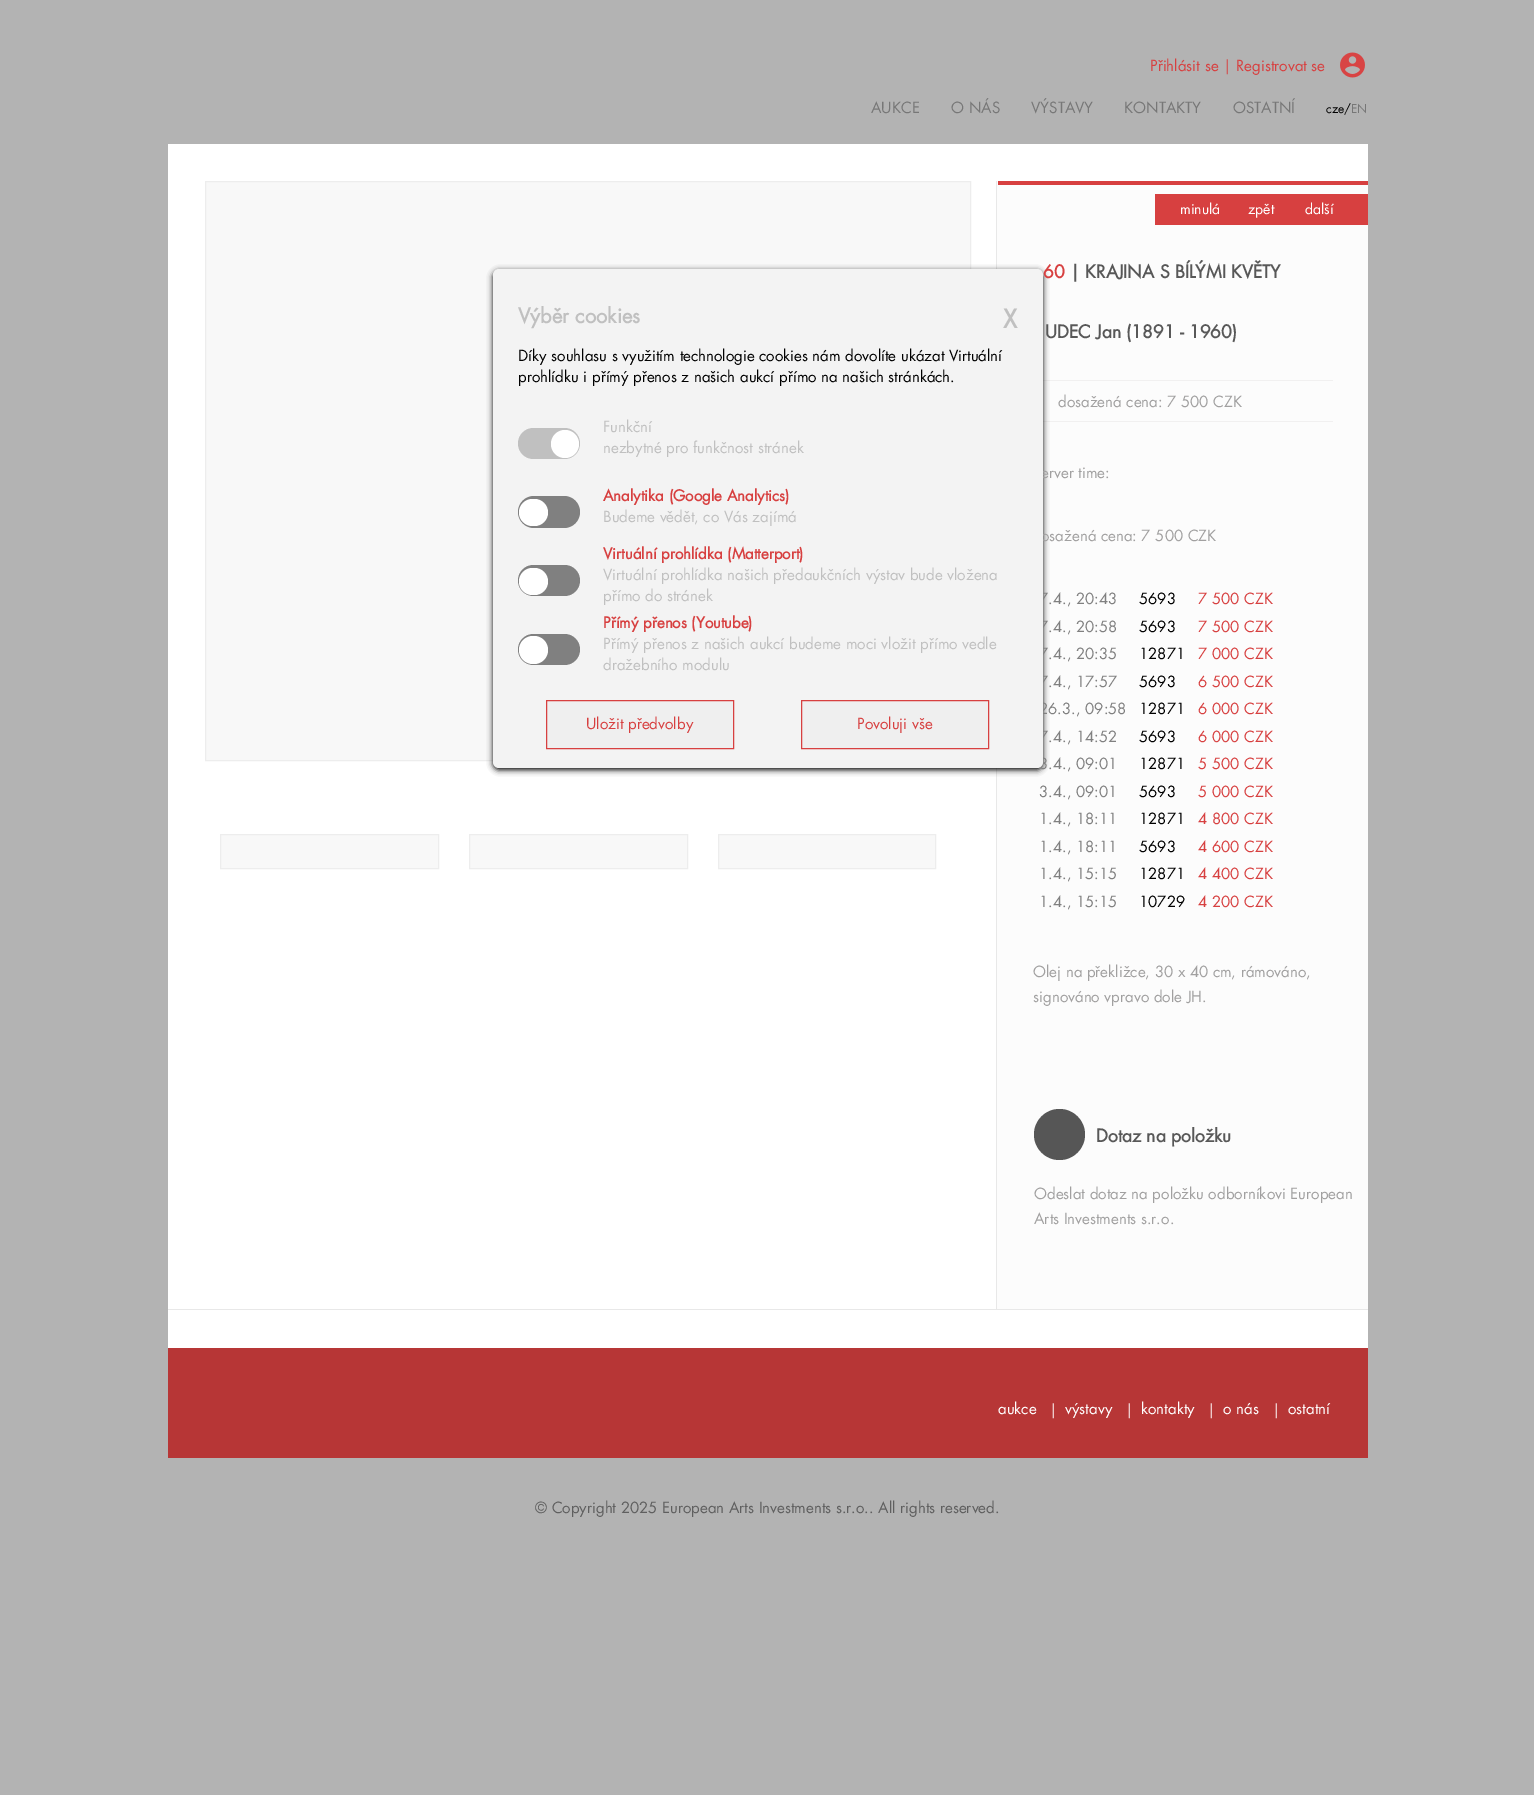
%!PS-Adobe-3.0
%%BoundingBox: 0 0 1534 1795
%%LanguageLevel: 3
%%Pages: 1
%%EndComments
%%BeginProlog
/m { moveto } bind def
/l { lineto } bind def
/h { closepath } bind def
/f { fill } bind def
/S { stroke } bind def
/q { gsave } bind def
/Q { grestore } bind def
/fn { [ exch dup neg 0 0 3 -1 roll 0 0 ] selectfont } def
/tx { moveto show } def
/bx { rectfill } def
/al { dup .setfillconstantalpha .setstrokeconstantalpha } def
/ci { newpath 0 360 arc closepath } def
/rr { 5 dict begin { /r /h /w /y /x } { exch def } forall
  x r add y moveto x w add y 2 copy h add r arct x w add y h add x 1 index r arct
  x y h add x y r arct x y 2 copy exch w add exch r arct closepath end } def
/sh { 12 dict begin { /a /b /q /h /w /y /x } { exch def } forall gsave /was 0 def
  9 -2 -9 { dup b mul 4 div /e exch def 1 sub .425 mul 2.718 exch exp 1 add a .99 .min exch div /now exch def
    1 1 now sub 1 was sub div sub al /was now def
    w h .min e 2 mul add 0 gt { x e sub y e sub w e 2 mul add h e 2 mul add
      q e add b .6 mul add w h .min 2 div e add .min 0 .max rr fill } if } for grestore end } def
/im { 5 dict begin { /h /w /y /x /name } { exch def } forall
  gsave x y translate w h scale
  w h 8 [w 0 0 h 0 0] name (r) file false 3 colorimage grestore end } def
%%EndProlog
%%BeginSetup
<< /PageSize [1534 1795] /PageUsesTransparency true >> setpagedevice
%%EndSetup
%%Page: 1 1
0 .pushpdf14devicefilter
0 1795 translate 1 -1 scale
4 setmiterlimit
0.702 setgray
0 0 1534 1795 bx
/Futura-Regular 15 fn
0.843 0.251 0.251 setrgbcolor
(Přihlásit se | Registrovat se) 1150 71 tx
(image0.raw) 1340 52 25 26 im
0.467 setgray
(AUKCE) 871 113 tx
(O NÁS) 951 113 tx
(VÝSTAVY) 1031 113 tx
(KONTAKTY) 1124 113 tx
(OSTATNÍ) 1233 113 tx
/Futura-Regular 12 fn
0 setgray
(cze/) 1326 113 tx
0.467 setgray
(EN) 1351 113 tx
1 setgray
168 144 1200 1204 bx
0.973 setgray
205.5 181.5 m 970.5 181.5 l 970.5 760.5 l 205.5 760.5 l h q f Q
0.929 setgray
S
0.988 setgray
997 181 371 1128 bx
0.91 setgray
996 181 1 1128 bx
0.945 0.941 0.941 setrgbcolor
1043 380 290 1 bx
1043 421 290 1 bx
0 setgray
493 271 550 499 6 3 1 sh
/Futura-Regular 15 fn
0.631 0.627 0.627 setrgbcolor
(erver time:) 1041 478 tx
(osažená cena: 7 500 CZK) 1041 541 tx
0.502 setgray
(7.4., 20:43) 1039 604 tx
(7.4., 20:58) 1039 632 tx
(7.4., 20:35) 1039 659 tx
(7.4., 17:57) 1039 687 tx
(26.3., 09:58) 1039 714 tx
(7.4., 14:52) 1039 742 tx
(3.4., 09:01) 1039 769 tx
0.953 setgray
493 269 550 499 6 rr f
/Futura-Bold 20 fn
0.753 setgray
(Výběr cookies) 518 323 tx
/Futura-Bold 25 fn
(X) 1003 328 tx
/Futura-Regular 15 fn
0 setgray
(Díky souhlasu s využitím technologie cookies nám dovolíte ukázat Virtuální) 518 361 tx
(prohlídku i přímý přenos z našich aukcí přímo na našich stránkách.) 518 382 tx
0.753 setgray
518 428 62 31 15.5 rr f
1 setgray
565 444 14 ci f
0.753 setgray
(Funkční) 603 432 tx
(nezbytné pro funkčnost stránek) 603 453 tx
0.502 setgray
518 496 62 32 16 rr f
1 setgray
519 499 29 27 13.5 rr f
/Futura-Bold 15 fn
0.843 0.251 0.251 setrgbcolor
(Analytika \(Google Analytics\)) 603 501 tx
/Futura-Regular 15 fn
0.753 setgray
(Budeme vědět, co Vás zajímá) 603 522 tx
0.502 setgray
518 565 62 31 15.5 rr f
1 setgray
519 568 29 27 13.5 rr f
/Futura-Bold 15 fn
0.843 0.251 0.251 setrgbcolor
(Virtuální prohlídka \(Matterport\)) 603 559 tx
/Futura-Regular 15 fn
0.753 setgray
(Virtuální prohlídka našich předaukčních výstav bude vložena) 603 580 tx
(přímo do stránek) 603 601 tx
0.502 setgray
518 634 62 31 15.5 rr f
1 setgray
519 636 29 28 14 rr f
/Futura-Bold 15 fn
0.843 0.251 0.251 setrgbcolor
(Přímý přenos \(Youtube\)) 603 628 tx
/Futura-Regular 15 fn
0.753 setgray
(Přímý přenos z našich aukcí budeme moci vložit přímo vedle) 603 649 tx
(dražebního modulu) 603 670 tx
0.937 setgray
546.5 700.5 m 733.5 700.5 l 733.5 748.5 l 546.5 748.5 l h q f Q
0.843 0.251 0.251 setrgbcolor
S
(Uložit předvolby) 586 729 tx
0.937 setgray
801.5 700.5 m 988.5 700.5 l 988.5 748.5 l 801.5 748.5 l h q f Q
0.843 0.251 0.251 setrgbcolor
S
(Povoluji vše) 857 729 tx
0.91 setgray
168 1309 1200 1 bx
0.973 setgray
220.5 834.5 m 438.5 834.5 l 438.5 868.5 l 220.5 868.5 l h q f Q
0.929 setgray
S
0.973 setgray
469.5 834.5 m 687.5 834.5 l 687.5 868.5 l 469.5 868.5 l h q f Q
0.929 setgray
S
0.973 setgray
718.5 834.5 m 935.5 834.5 l 935.5 868.5 l 718.5 868.5 l h q f Q
0.929 setgray
S
0.843 0.251 0.251 setrgbcolor
1155 194 213 31 bx
/Futura-Regular 14 fn
1 setgray
(minulá) 1180 214 tx
(zpět) 1248 214 tx
(další) 1305 214 tx
0.843 0.251 0.251 setrgbcolor
998 181 370 4 bx
/Futura-Bold 17.5 fn
(60) 1043 278 tx
0.345 setgray
(| KRAJINA S BÍLÝMI KVĚTY) 1070 278 tx
(UDEC Jan \(1891 - 1960\)) 1045 338 tx
/Futura-Regular 15 fn
0.631 0.627 0.627 setrgbcolor
(dosažená cena: 7 500 CZK) 1058 407 tx
0 setgray
(5693) 1139 604 tx
0.843 0.251 0.251 setrgbcolor
(7 500 CZK) 1198 604 tx
0 setgray
(5693) 1139 632 tx
0.843 0.251 0.251 setrgbcolor
(7 500 CZK) 1198 632 tx
0 setgray
(12871) 1139 659 tx
0.843 0.251 0.251 setrgbcolor
(7 000 CZK) 1198 659 tx
0 setgray
(5693) 1139 687 tx
0.843 0.251 0.251 setrgbcolor
(6 500 CZK) 1198 687 tx
0 setgray
(12871) 1139 714 tx
0.843 0.251 0.251 setrgbcolor
(6 000 CZK) 1198 714 tx
0 setgray
(5693) 1139 742 tx
0.843 0.251 0.251 setrgbcolor
(6 000 CZK) 1198 742 tx
0 setgray
(12871) 1139 769 tx
0.843 0.251 0.251 setrgbcolor
(5 500 CZK) 1198 769 tx
0.502 setgray
(3.4., 09:01) 1039 797 tx
0 setgray
(5693) 1139 797 tx
0.843 0.251 0.251 setrgbcolor
(5 000 CZK) 1198 797 tx
0.502 setgray
(1.4., 18:11) 1039 824 tx
0 setgray
(12871) 1139 824 tx
0.843 0.251 0.251 setrgbcolor
(4 800 CZK) 1198 824 tx
0.502 setgray
(1.4., 18:11) 1039 852 tx
0 setgray
(5693) 1139 852 tx
0.843 0.251 0.251 setrgbcolor
(4 600 CZK) 1198 852 tx
0.502 setgray
(1.4., 15:15) 1039 879 tx
0 setgray
(12871) 1139 879 tx
0.843 0.251 0.251 setrgbcolor
(4 400 CZK) 1198 879 tx
0.502 setgray
(1.4., 15:15) 1039 907 tx
0 setgray
(10729) 1139 907 tx
0.843 0.251 0.251 setrgbcolor
(4 200 CZK) 1198 907 tx
0.631 0.627 0.627 setrgbcolor
(Olej na překližce, 30 x 40 cm, rámováno,) 1033 977 tx
(signováno vpravo dole JH.) 1033 1002 tx
0.337 setgray
1059.5 1134.5 25.5 ci f
/Futura-Bold 17.5 fn
0.345 setgray
(Dotaz na položku) 1096 1142 tx
/Futura-Regular 15 fn
0.631 0.627 0.627 setrgbcolor
(Odeslat dotaz na položku odborníkovi European) 1034 1199 tx
(Arts Investments s.r.o.) 1034 1224 tx
0.718 0.212 0.212 setrgbcolor
168 1348 1200 110 bx
1 setgray
(aukce) 998 1414 tx
(|) 1049 1415 tx
(výstavy) 1065 1414 tx
(|) 1125 1415 tx
(kontakty) 1141 1414 tx
(|) 1207 1415 tx
(o nás) 1223 1414 tx
(|) 1272 1415 tx
(ostatní) 1288 1414 tx
0.373 setgray
(© Copyright 2025 European Arts Investments s.r.o.. All rights reserved.) 535 1513 tx
.poppdf14devicefilter showpage
%%EOF
